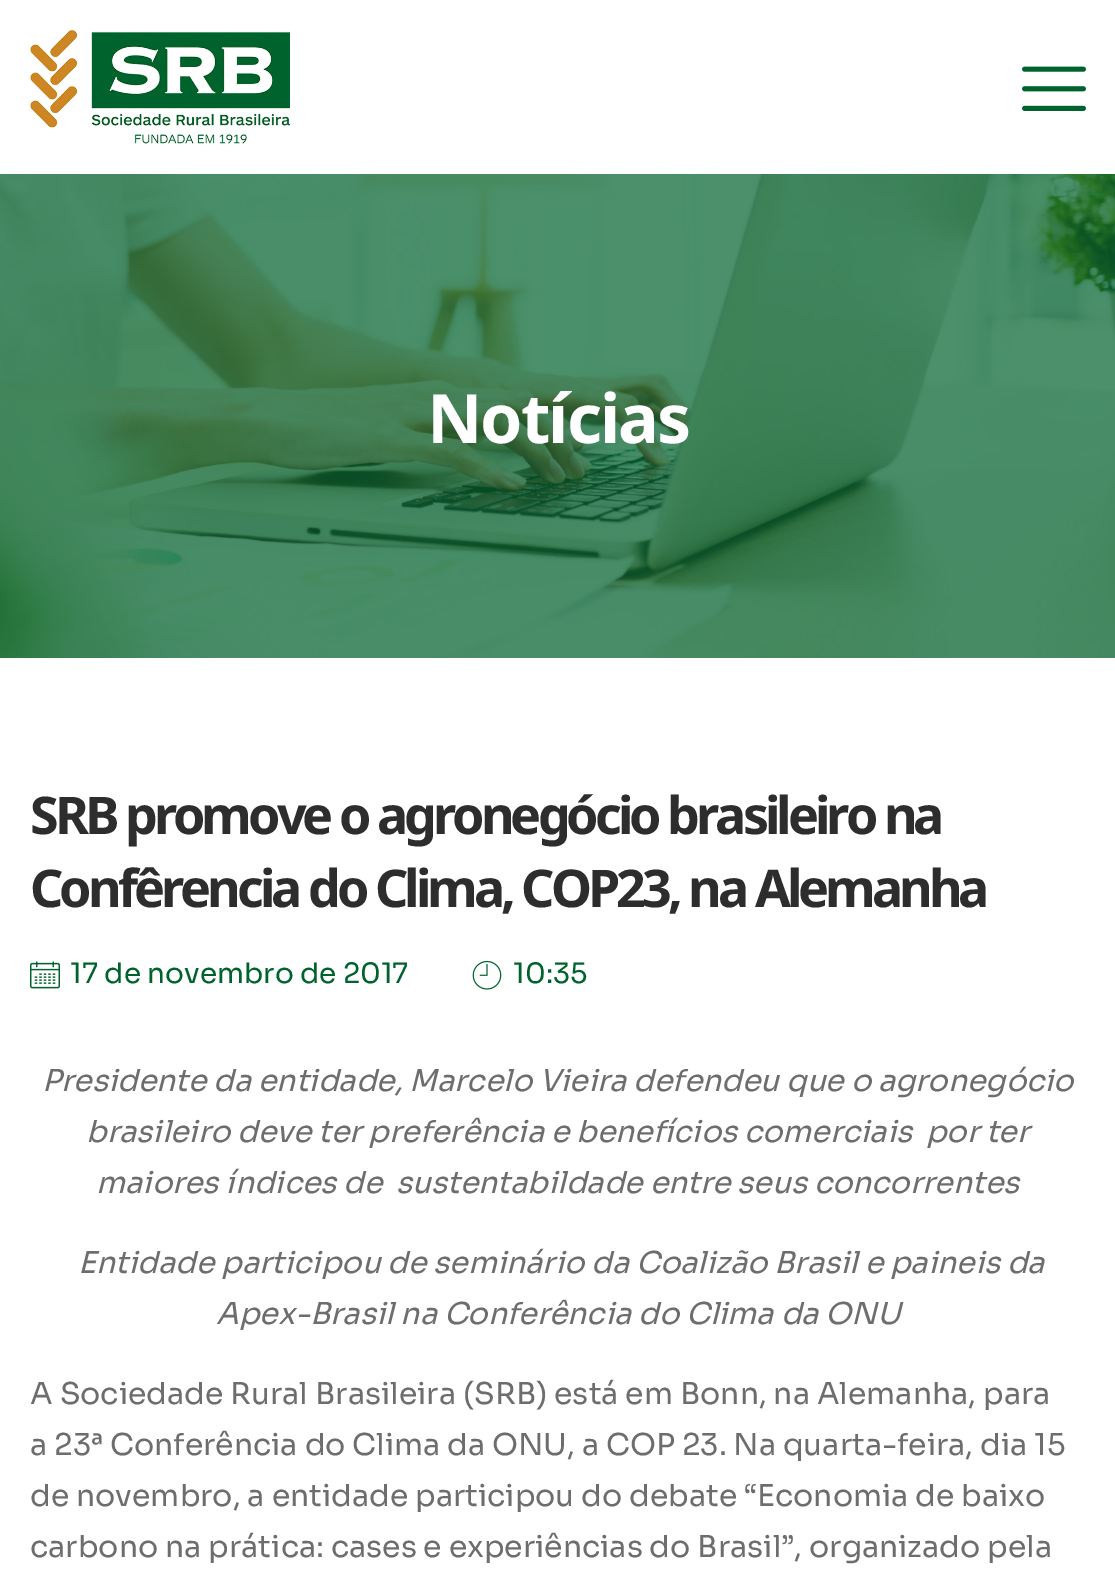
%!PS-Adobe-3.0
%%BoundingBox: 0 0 1115 1589
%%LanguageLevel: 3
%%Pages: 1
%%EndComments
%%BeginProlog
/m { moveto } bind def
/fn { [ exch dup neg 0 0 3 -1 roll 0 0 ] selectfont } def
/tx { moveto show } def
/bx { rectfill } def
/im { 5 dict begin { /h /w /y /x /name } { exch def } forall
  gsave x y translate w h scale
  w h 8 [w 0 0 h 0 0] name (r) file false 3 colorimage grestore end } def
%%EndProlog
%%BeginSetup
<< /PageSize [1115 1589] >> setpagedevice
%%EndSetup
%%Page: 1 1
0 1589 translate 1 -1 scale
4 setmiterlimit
1 setgray
0 0 1115 1589 bx
(image0.raw) 30 30 260 114 im
(image1.raw) 1022 66 64 45 im
(image2.raw) 0 174 1115 484 im
/NotoSans-Bold 68 fn
427 443 m -2 0 (Notícias) ashow
/NotoSans-Bold 52 fn
0.176 setgray
30 834 m -4 0 (SRB promove o agronegócio brasileiro na) ashow
30 907 m -4 0 (Confêrencia do Clima, COP23, na Alemanha) ashow
(image3.raw) 30 961 30 28 im
/Sora-Regular 28 fn
0 0.388 0.176 setrgbcolor
(17 de novembro de 2017) 70 983 tx
(image4.raw) 472 960 30 30 im
(10:35) 513 983 tx
/Sora-Italic 30 fn
0.427 setgray
(Presidente da entidade, Marcelo Vieira defendeu que o agronegócio) 42 1091 tx
(brasileiro deve ter preferência e benefícios comerciais  por ter) 86 1142 tx
(maiores índices de  sustentabildade entre seus concorrentes) 96 1193 tx
(Entidade participou de seminário da Coalizão Brasil e paineis da) 78 1273 tx
(Apex-Brasil na Conferência do Clima da ONU) 216 1324 tx
/Sora-Regular 30 fn
(A Sociedade Rural Brasileira \(SRB\) está em Bonn, na Alemanha, para) 30 1404 tx
(a 23ª Conferência do Clima da ONU, a COP 23. Na quarta-feira, dia 15) 30 1455 tx
(de novembro, a entidade participou do debate “Economia de baixo) 30 1506 tx
(carbono na prática: cases e experiências do Brasil”, organizado pela) 30 1557 tx
showpage
%%EOF
